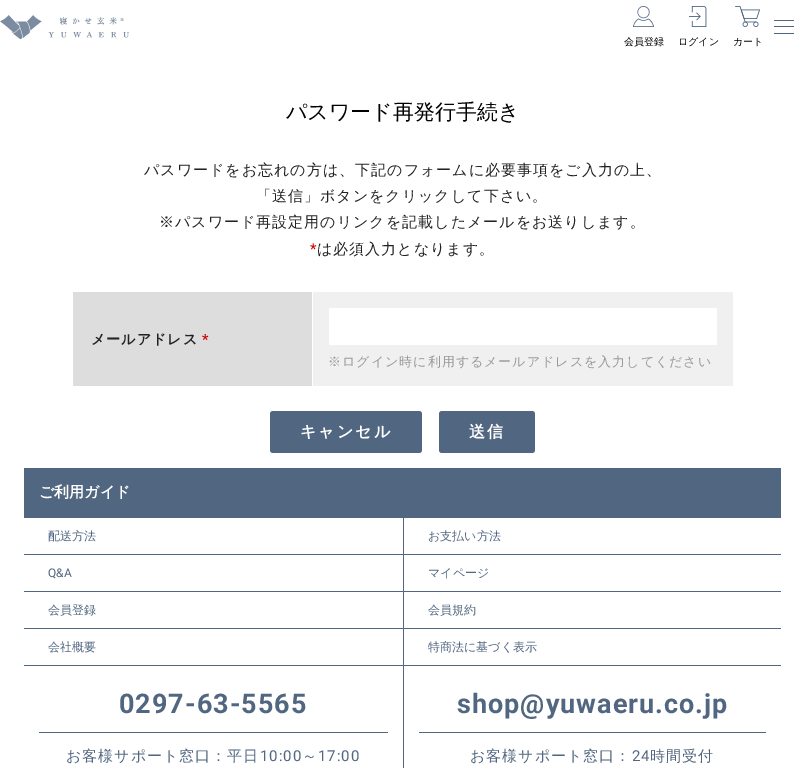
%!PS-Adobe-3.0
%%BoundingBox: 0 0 805 768
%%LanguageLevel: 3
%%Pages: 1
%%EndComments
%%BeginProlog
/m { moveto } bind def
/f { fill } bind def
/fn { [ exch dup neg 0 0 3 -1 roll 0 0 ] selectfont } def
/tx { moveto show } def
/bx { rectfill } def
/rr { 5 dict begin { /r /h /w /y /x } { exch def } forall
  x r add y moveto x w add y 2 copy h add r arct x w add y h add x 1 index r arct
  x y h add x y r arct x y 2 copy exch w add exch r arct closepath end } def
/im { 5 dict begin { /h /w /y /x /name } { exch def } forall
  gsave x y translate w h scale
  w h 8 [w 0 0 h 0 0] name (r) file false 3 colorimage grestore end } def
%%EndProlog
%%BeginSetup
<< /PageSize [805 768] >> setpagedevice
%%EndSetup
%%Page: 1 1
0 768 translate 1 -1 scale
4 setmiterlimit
1 setgray
0 0 805 768 bx
(image0.raw) 0 15 129 24 im
0.318 0.4 0.502 setrgbcolor
774 26 20 1 bx
774 20 20 1 bx
774 33 20 1 bx
(image1.raw) 633 6 21 21 im
/WenQuanYiZenHei-Medium 10 fn
0 setgray
(会員登録) 624 45 tx
(image2.raw) 689 6 18 21 im
(ログイン) 678 45 tx
(image3.raw) 735 6 25 21 im
(カート) 733 45 tx
/WenQuanYiZenHei-Medium 21 fn
(パスワード再発行手続き) 286 119 tx
/WenQuanYiZenHei-Medium 15 fn
0.133 setgray
144 175 m 1 0 (パスワードをお忘れの方は、下記のフォームに必要事項をご入力の上、) ashow
256 201 m 1 0 (「送信」ボタンをクリックして下さい。) ashow
159 227 m 1 0 (※パスワード再設定用のリンクを記載したメールをお送りします。) ashow
/Roboto-Regular 15 fn
0.8 0 0 setrgbcolor
310 254 m 1 0 (*) ashow
/WenQuanYiZenHei-Medium 15 fn
0.133 setgray
317 254 m 1 0 (は必須入力となります。) ashow
0.867 setgray
73 292 239 94 bx
/WenQuanYiZenHei-Bold 14 fn
0.133 setgray
91 344 m 1 0 (メールアドレス) ashow
/Roboto-Bold 14 fn
0.8 0 0 setrgbcolor
202 344 m 1 0 (*) ashow
0.941 setgray
313 292 420 94 bx
1 setgray
329 308 388 37 bx
/WenQuanYiZenHei-Medium 13 fn
0.6 setgray
328 366 m 1 0 (※ログイン時に利用するメールアドレスを入力してください) ashow
0.318 0.4 0.502 setrgbcolor
270 411 152 42 3 rr f
/WenQuanYiZenHei-Bold 16 fn
1 setgray
300 437 m 2 0 (キャンセル) ashow
0.318 0.4 0.502 setrgbcolor
439 411 96 42 3 rr f
1 setgray
469 437 m 2 0 (送信) ashow
0.318 0.4 0.502 setrgbcolor
24 468 757 50 bx
/WenQuanYiZenHei-Bold 15 fn
1 setgray
(ご利用ガイド) 39 497 tx
0.318 0.4 0.502 setrgbcolor
24 554 757 1 bx
/WenQuanYiZenHei-Medium 12 fn
(配送方法) 48 540 tx
403 518 1 37 bx
(お支払い方法) 428 540 tx
24 591 757 1 bx
/Roboto-Regular 12 fn
(Q&A) 48 577 tx
403 555 1 37 bx
/WenQuanYiZenHei-Medium 12 fn
(マイページ) 428 577 tx
24 628 757 1 bx
(会員登録) 48 614 tx
403 592 1 37 bx
(会員規約) 428 614 tx
24 665 757 1 bx
(会社概要) 48 651 tx
403 629 1 139 bx
(特商法に基づく表示) 428 651 tx
39 732 349 1 bx
/Roboto-Bold 27 fn
119 713 m 1 0 (0297-63-5565) ashow
/WenQuanYiZenHei-Medium 15 fn
66 761 m 1 0 (お客様サポート窓口：平日) ashow
/Roboto-Regular 15 fn
260 761 m 1 0 (10:00) ashow
/WenQuanYiZenHei-Medium 15 fn
302 761 m 1 0 (～) ashow
/Roboto-Regular 15 fn
318 761 m 1 0 (17:00) ashow
419 732 347 1 bx
/Roboto-Bold 27 fn
457 713 m 1 0 (shop@yuwaeru.co.jp) ashow
/WenQuanYiZenHei-Medium 15 fn
470 761 m 1 0 (お客様サポート窓口：) ashow
/Roboto-Regular 15 fn
632 761 m 1 0 (24) ashow
/WenQuanYiZenHei-Medium 15 fn
650 761 m 1 0 (時間受付) ashow
showpage
%%EOF
